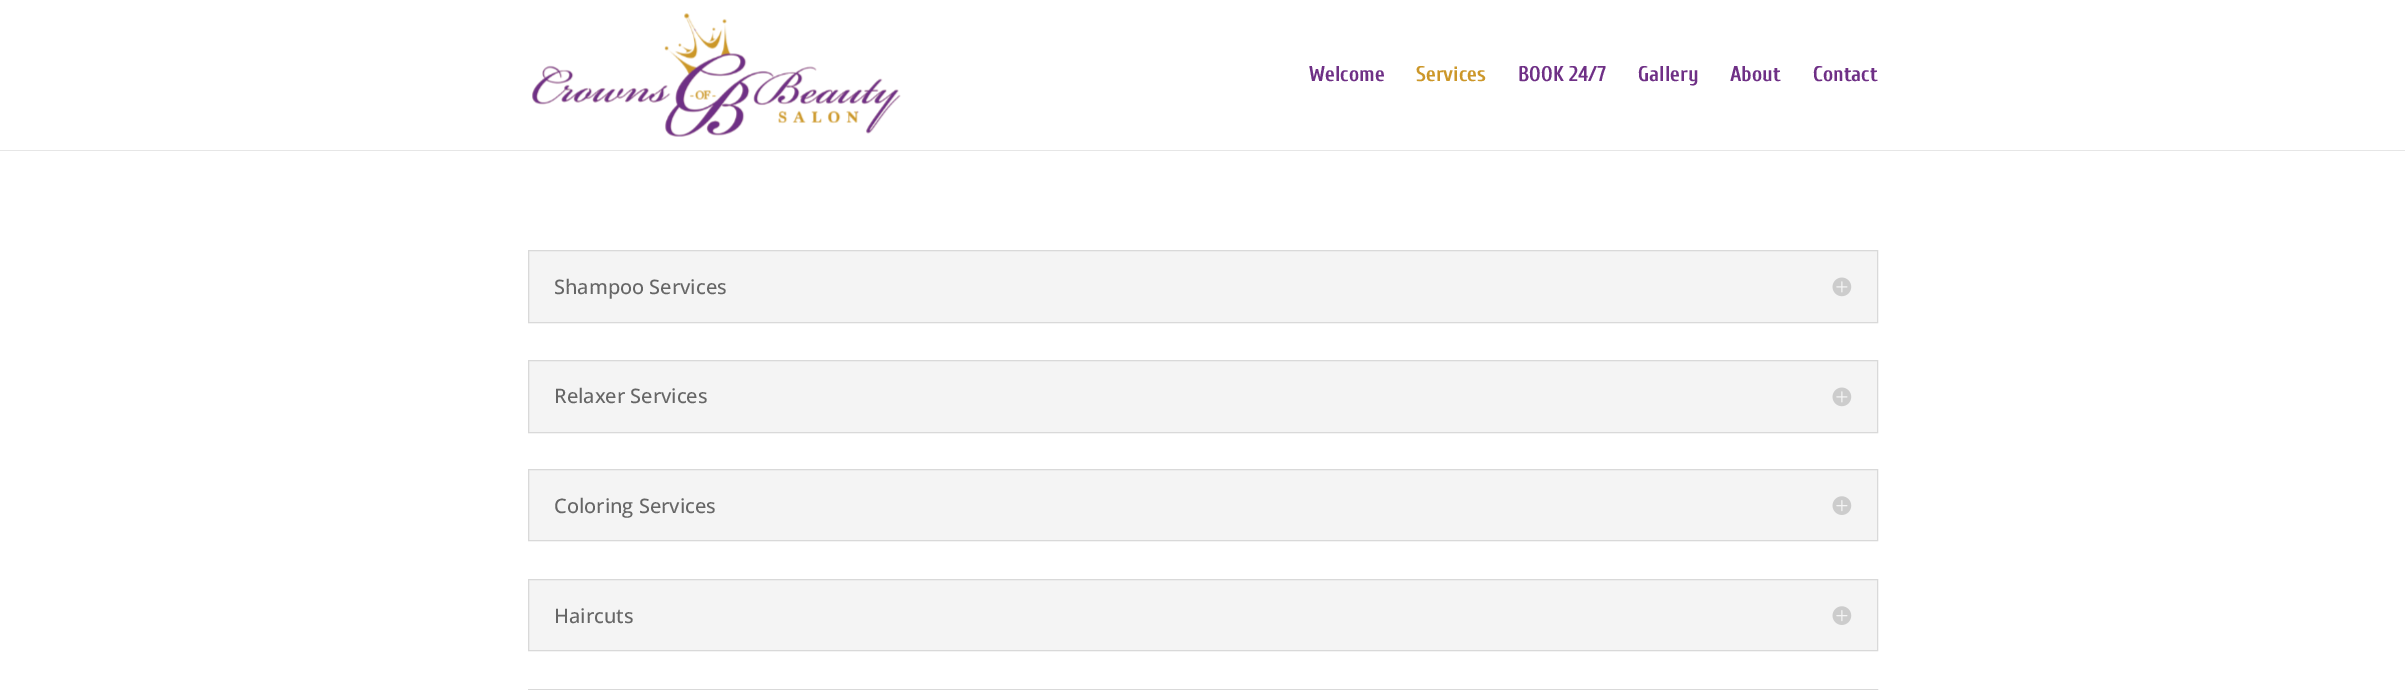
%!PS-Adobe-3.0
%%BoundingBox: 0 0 2405 690
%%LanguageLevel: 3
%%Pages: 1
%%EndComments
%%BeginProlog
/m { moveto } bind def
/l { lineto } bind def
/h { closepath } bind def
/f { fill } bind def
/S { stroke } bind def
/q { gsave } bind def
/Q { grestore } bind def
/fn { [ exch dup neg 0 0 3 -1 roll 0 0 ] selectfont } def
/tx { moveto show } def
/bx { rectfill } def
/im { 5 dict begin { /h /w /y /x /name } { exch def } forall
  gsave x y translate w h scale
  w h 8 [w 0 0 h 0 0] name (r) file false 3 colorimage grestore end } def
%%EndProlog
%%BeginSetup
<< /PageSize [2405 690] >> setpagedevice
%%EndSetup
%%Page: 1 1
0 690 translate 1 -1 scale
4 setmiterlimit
1 setgray
0 0 2405 690 bx
0.902 setgray
0 150 2405 1 bx
(image0.raw) 532 13 369 124 im
/Cuprum-Bold 21.25 fn
0.435 0.188 0.525 setrgbcolor
(Welcome) 1309 81 tx
0.8 0.592 0.161 setrgbcolor
(Services) 1416 81 tx
0.435 0.188 0.525 setrgbcolor
(BOOK 24/7) 1518 81 tx
(Gallery) 1638 81 tx
(About) 1730 81 tx
(Contact) 1813 81 tx
0.957 setgray
528.5 250.5 m 1877.5 250.5 l 1877.5 322.5 l 528.5 322.5 l h q f Q
0.851 setgray
S
/OpenSans-Medium 20 fn
0.4 setgray
(Shampoo Services) 554 294 tx
(image1.raw) 1832 277 20 20 im
0.957 setgray
528.5 360.5 m 1877.5 360.5 l 1877.5 432.5 l 528.5 432.5 l h q f Q
0.851 setgray
S
0.4 setgray
(Relaxer Services) 554 403 tx
(image1.raw) 1832 387 20 20 im
0.957 setgray
528.5 469.5 m 1877.5 469.5 l 1877.5 540.5 l 528.5 540.5 l h q f Q
0.851 setgray
S
0.4 setgray
(Coloring Services) 554 513 tx
(image2.raw) 1832 496 20 19 im
0.957 setgray
528.5 579.5 m 1877.5 579.5 l 1877.5 650.5 l 528.5 650.5 l h q f Q
0.851 setgray
S
0.4 setgray
(Haircuts) 554 623 tx
(image2.raw) 1832 606 20 19 im
0.851 setgray
528.5 689.5 1349 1 rectstroke
showpage
%%EOF
